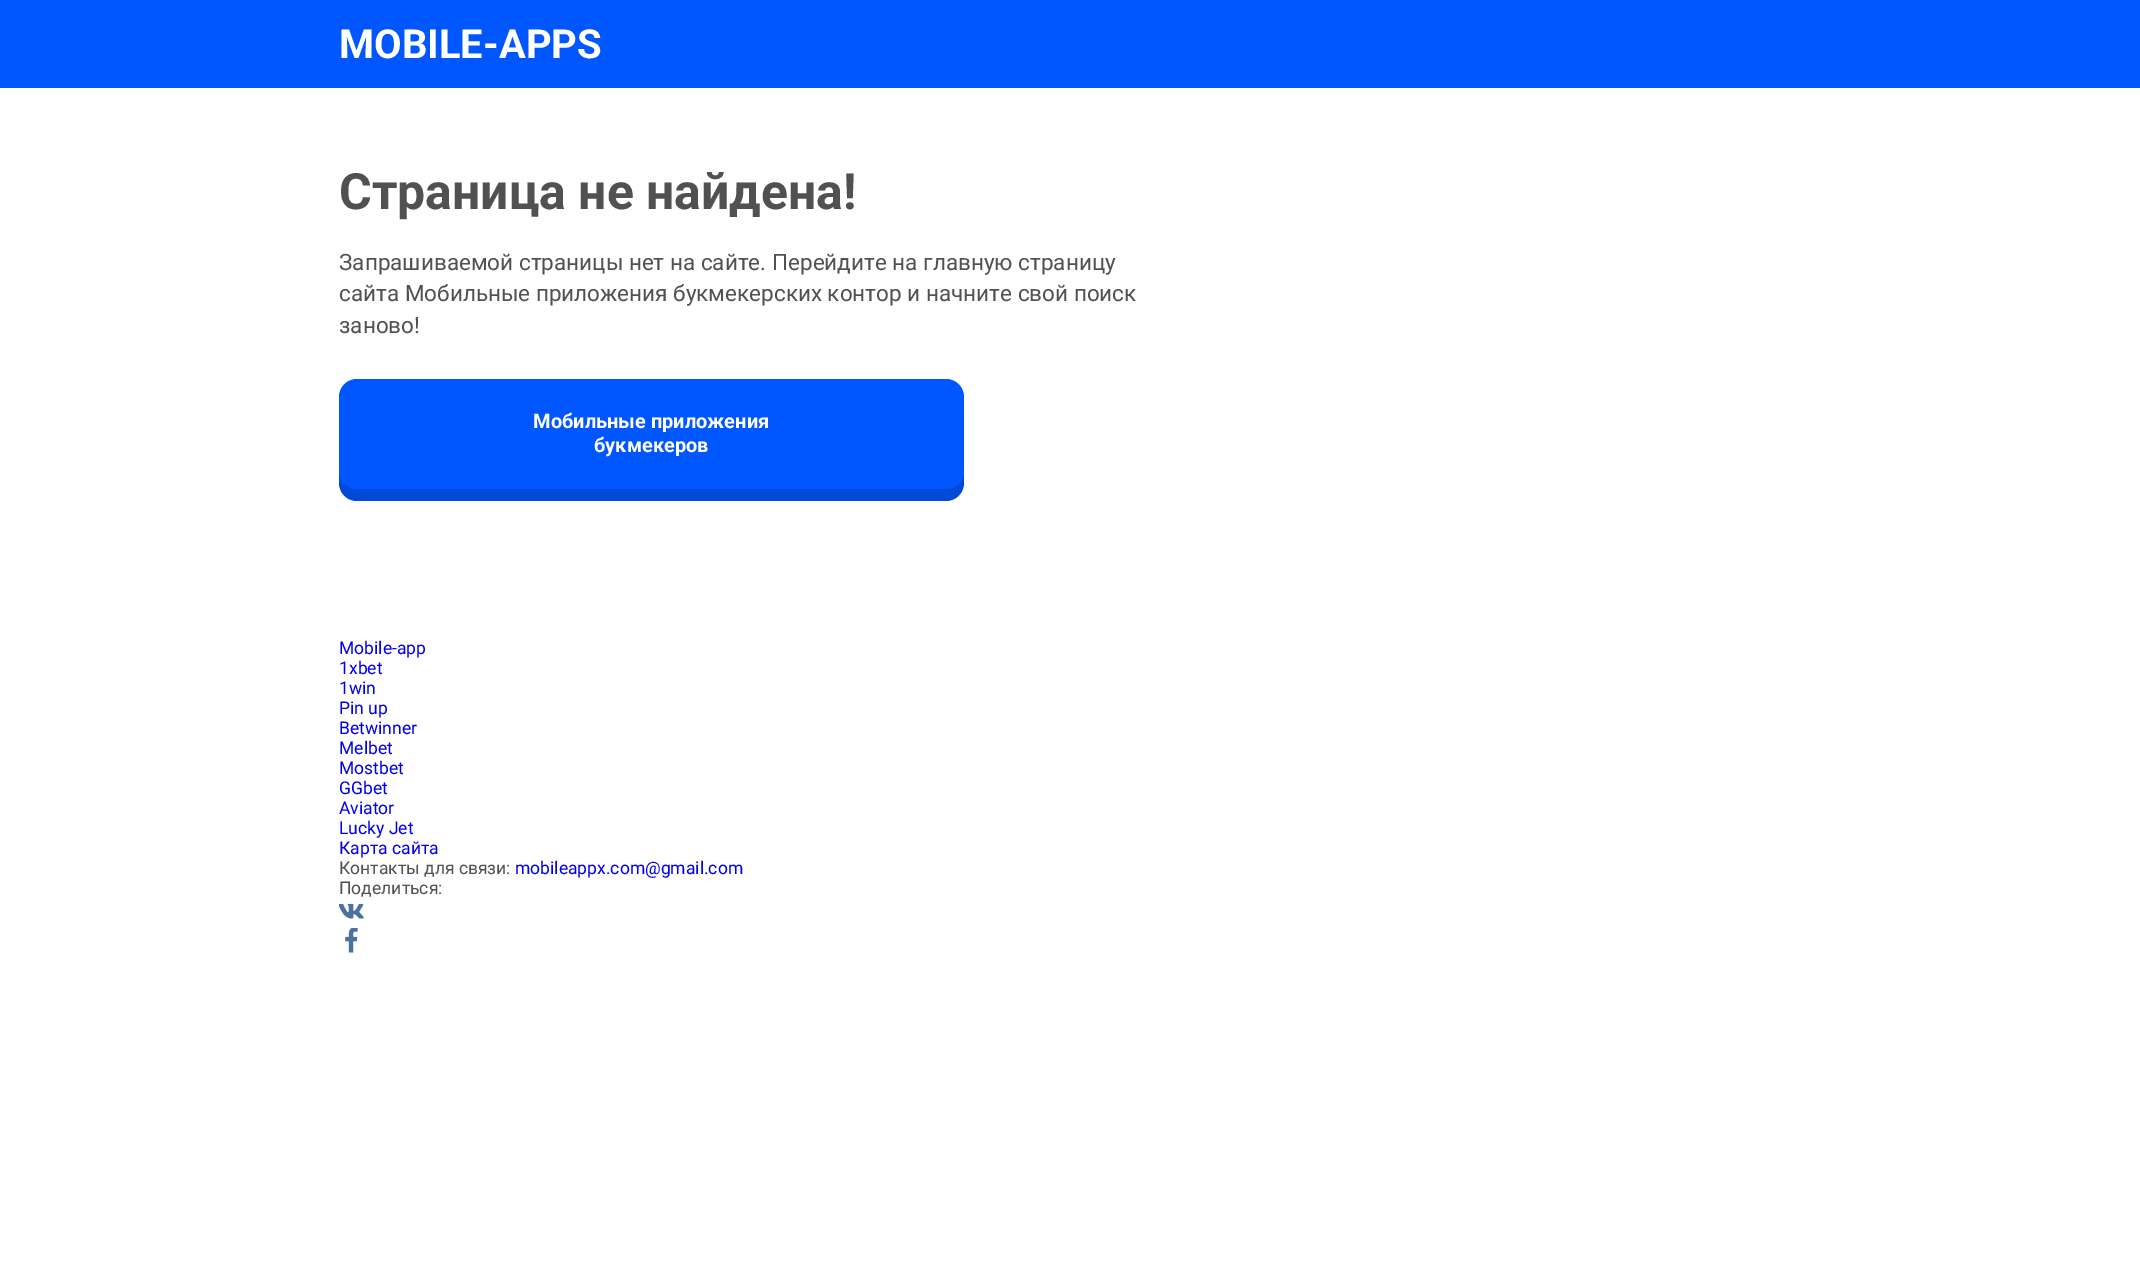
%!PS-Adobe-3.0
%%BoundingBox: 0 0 2140 1269
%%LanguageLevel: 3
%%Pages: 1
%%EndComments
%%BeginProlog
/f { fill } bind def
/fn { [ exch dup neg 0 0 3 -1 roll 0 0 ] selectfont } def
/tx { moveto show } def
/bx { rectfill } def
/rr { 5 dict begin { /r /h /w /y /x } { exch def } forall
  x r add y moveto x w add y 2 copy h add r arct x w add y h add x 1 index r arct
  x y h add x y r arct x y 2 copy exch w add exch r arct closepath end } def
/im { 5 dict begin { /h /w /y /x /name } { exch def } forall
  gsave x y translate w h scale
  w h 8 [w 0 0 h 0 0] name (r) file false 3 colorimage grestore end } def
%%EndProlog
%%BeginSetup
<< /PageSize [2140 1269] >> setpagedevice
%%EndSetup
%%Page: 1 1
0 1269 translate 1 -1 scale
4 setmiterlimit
1 setgray
0 0 2140 1269 bx
0 0.341 1 setrgbcolor
0 0 2140 88 bx
/Roboto-Bold 40 fn
1 setgray
(MOBILE-APPS) 339 58 tx
/Roboto-Bold 50 fn
0.322 0.318 0.318 setrgbcolor
(Страница не найдена!) 339 209 tx
/Roboto-Regular 22.5 fn
(Запрашиваемой страницы нет на сайте. Перейдите на главную страницу) 339 270 tx
(сайта Мобильные приложения букмекерских контор и начните свой поиск) 339 301 tx
(заново!) 339 333 tx
0.004 0.29 0.847 setrgbcolor
339 391 625 110 18 rr f
0 0.341 1 setrgbcolor
339 379 625 110 18 rr f
/Roboto-Bold 20 fn
1 setgray
(Мобильные приложения) 533 428 tx
(букмекеров) 594 452 tx
/Roboto-Regular 17.5 fn
0 0 0.933 setrgbcolor
(Mobile-app) 339 654 tx
(1xbet) 339 674 tx
(1win) 339 694 tx
(Pin up) 339 714 tx
(Betwinner) 339 734 tx
(Melbet) 339 754 tx
(Mostbet) 339 774 tx
(GGbet) 339 794 tx
(Aviator) 339 814 tx
(Lucky Jet) 339 834 tx
(Карта сайта) 339 854 tx
0.322 0.318 0.318 setrgbcolor
(Контакты для связи:) 339 874 tx
0 0 0.933 setrgbcolor
(mobileappx.com@gmail.com) 515 874 tx
0.322 0.318 0.318 setrgbcolor
(Поделиться:) 339 894 tx
(image0.raw) 339 903 25 16 im
(image1.raw) 345 928 13 25 im
showpage
%%EOF
